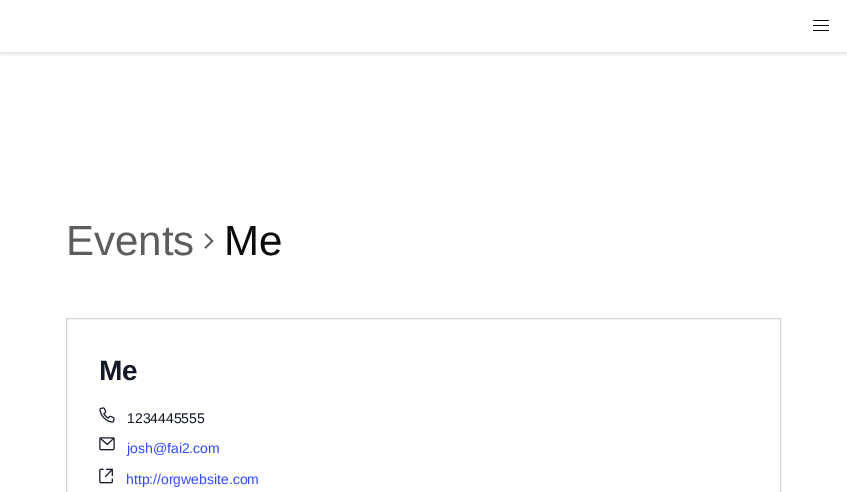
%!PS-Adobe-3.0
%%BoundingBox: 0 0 847 492
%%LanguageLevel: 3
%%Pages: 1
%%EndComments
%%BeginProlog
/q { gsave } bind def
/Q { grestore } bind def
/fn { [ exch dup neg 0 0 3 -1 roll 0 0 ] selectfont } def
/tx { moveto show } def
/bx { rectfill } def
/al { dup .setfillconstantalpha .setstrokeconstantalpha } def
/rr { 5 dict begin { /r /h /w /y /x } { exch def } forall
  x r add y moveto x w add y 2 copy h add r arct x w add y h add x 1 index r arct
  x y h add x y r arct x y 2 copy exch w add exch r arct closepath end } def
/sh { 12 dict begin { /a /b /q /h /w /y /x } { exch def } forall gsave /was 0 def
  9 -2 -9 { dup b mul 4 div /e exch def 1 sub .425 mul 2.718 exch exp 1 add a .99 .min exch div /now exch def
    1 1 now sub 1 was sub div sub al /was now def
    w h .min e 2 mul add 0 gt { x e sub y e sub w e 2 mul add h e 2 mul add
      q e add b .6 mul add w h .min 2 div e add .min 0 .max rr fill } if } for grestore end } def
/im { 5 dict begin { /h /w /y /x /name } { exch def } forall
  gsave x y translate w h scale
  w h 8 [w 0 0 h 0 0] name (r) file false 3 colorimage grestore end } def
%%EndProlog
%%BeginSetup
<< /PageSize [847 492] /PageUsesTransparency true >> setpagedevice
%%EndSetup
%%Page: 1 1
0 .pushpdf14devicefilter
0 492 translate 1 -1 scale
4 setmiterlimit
1 setgray
0 0 847 492 bx
q
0 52 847 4 rectclip
0 setgray
0 0 847 52 0 3.5 0.2 sh
Q
0.039 setgray
813 20 16 1 bx
813 25 16 1 bx
813 30 16 1 bx
/LiberationSans-Regular 42 fn
0.365 setgray
(Events) 66 255 tx
(image0.raw) 204 233 10 16 im
0.039 setgray
(Me) 224 255 tx
0.835 setgray
66.5 318.5 714 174 rectstroke
/LiberationSans-Bold 28 fn
0.078 0.094 0.153 setrgbcolor
(Me) 99 380 tx
(image1.raw) 99 407 16 16 im
/LiberationSans-Regular 14 fn
(1234445555) 127 423 tx
(image2.raw) 99 437 16 14 im
0.2 0.29 1 setrgbcolor
(josh@fai2.com) 127 453 tx
(image3.raw) 99 468 14 16 im
(http://orgwebsite.com) 126 484 tx
.poppdf14devicefilter showpage
%%EOF
